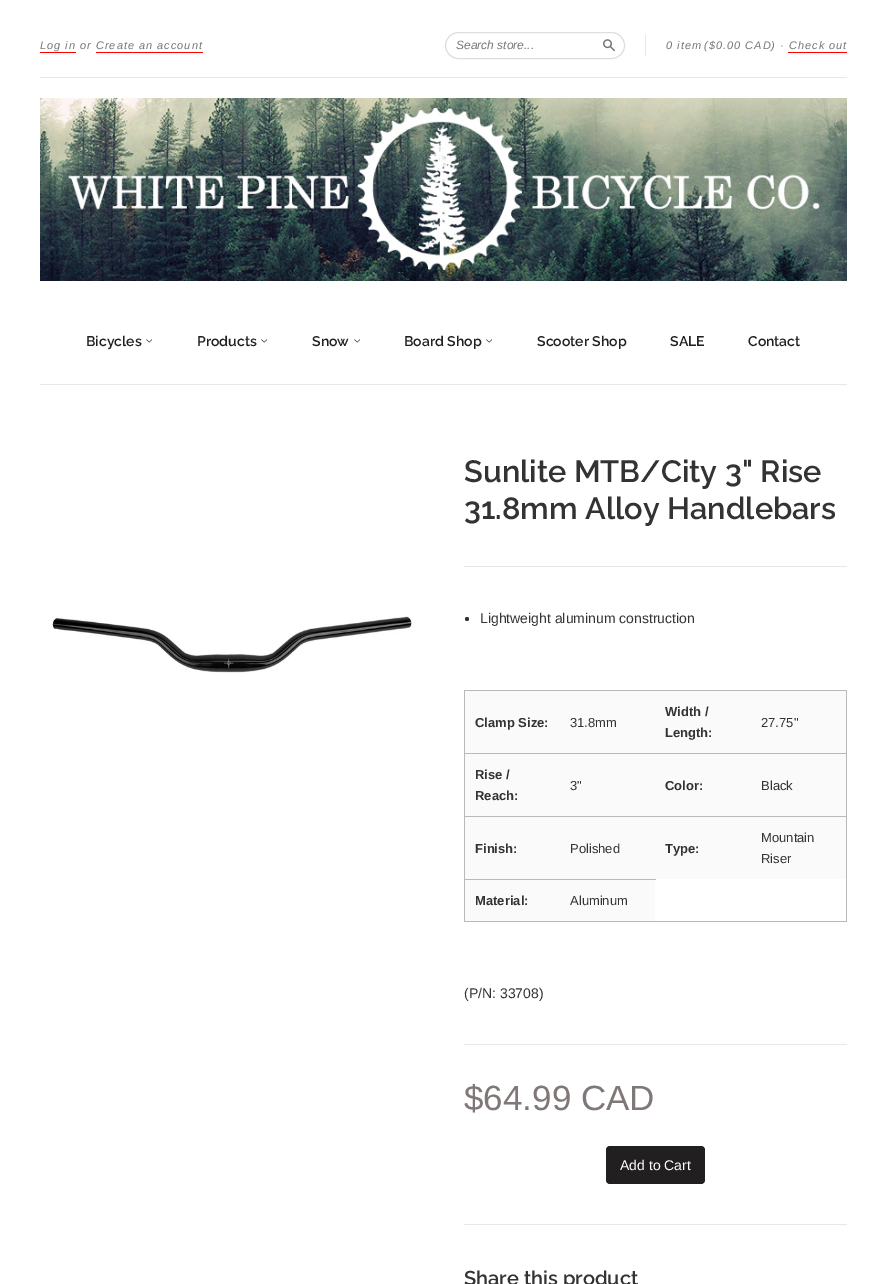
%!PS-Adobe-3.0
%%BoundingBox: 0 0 887 1284
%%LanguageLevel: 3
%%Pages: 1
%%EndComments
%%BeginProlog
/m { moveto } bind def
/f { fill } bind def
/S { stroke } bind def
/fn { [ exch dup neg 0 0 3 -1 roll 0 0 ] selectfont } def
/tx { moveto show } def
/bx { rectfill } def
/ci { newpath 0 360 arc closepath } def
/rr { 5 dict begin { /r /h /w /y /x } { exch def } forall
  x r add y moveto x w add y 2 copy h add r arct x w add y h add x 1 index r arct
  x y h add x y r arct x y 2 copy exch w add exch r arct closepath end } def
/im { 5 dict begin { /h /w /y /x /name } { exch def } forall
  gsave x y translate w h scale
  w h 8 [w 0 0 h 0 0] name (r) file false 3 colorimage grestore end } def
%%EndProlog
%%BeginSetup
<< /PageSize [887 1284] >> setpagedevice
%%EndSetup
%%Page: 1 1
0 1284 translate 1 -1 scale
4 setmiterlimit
1 setgray
0 0 887 1284 bx
0.91 setgray
40 384 807 1 bx
40 77 807 1 bx
/LiberationSans-Italic 11 fn
0.467 setgray
40 49 m 1 0 (Log in or Create an account) ashow
1 0 0 setrgbcolor
40 52 36 1 bx
96 52 107 1 bx
0.871 setgray
445.5 32.5 179 26 13 rr S
/LiberationSans-Italic 12 fn
0.467 setgray
(Search store...) 456 49 tx
(image0.raw) 603 39 12 13 im
0.91 setgray
645 35 1 21 bx
/LiberationSans-Italic 11 fn
0.467 setgray
666 49 m 1 0 (0 item) ashow
704 49 m 1 0 (\($0.00 CAD\) · Check out) ashow
1 0 0 setrgbcolor
788 52 59 1 bx
(image1.raw) 40 98 807 183 im
/Raleway-Thin 14 fn
0.129 0.122 0.122 setrgbcolor
(Bicycles) 86 346 tx
(image2.raw) 146 339 7 4 im
(Products) 197 346 tx
(image2.raw) 261 339 7 4 im
(Snow) 312 346 tx
(image2.raw) 354 339 7 4 im
(Board Shop) 404 346 tx
(image2.raw) 486 339 7 4 im
(Scooter Shop) 537 346 tx
(SALE) 670 346 tx
(Contact) 748 346 tx
(image3.raw) 50 616 364 57 im
/Raleway-Thin 30.75 fn
0.2 setgray
(Sunlite MTB/City 3" Rise) 464 482 tx
(31.8mm Alloy Handlebars) 464 519 tx
0.91 setgray
464 566 383 1 bx
0.2 setgray
467 619 2 ci f
/LiberationSans-Regular 14 fn
(Lightweight aluminum construction) 480 623 tx
0.725 setgray
464 690 383 1 bx
846 690 1 232 bx
464 921 383 1 bx
464 690 1 232 bx
0.98 setgray
465 691 381 62 bx
/LiberationSans-Bold 13 fn
0.2 setgray
(Clamp Size:) 475 727 tx
/LiberationSans-Regular 13 fn
(31.8mm) 570 727 tx
/LiberationSans-Bold 13 fn
(Width /) 665 716 tx
(Length:) 665 737 tx
/LiberationSans-Regular 13 fn
(27.75") 761 727 tx
0.98 setgray
465 754 381 62 bx
/LiberationSans-Bold 13 fn
0.2 setgray
(Rise /) 475 779 tx
(Reach:) 475 800 tx
/LiberationSans-Regular 13 fn
(3") 570 790 tx
/LiberationSans-Bold 13 fn
(Color:) 665 790 tx
0.725 setgray
464 753 383 1 bx
/LiberationSans-Regular 13 fn
0.2 setgray
(Black) 761 790 tx
0.98 setgray
465 817 381 62 bx
/LiberationSans-Bold 13 fn
0.2 setgray
(Finish:) 475 853 tx
/LiberationSans-Regular 13 fn
(Polished) 570 853 tx
/LiberationSans-Bold 13 fn
(Type:) 665 853 tx
0.725 setgray
464 816 383 1 bx
/LiberationSans-Regular 13 fn
0.2 setgray
(Mountain) 761 842 tx
(Riser) 761 863 tx
0.98 setgray
465 880 190 41 bx
/LiberationSans-Bold 13 fn
0.2 setgray
(Material:) 475 905 tx
0.725 setgray
464 879 192 1 bx
/LiberationSans-Regular 13 fn
0.2 setgray
(Aluminum) 570 905 tx
/LiberationSans-Regular 14 fn
(\(P/N: 33708\)) 464 998 tx
0.91 setgray
464 1044 383 1 bx
/LiberationSans-Regular 35 fn
0.502 0.467 0.467 setrgbcolor
($64.99 CAD) 464 1110 tx
0.129 0.122 0.122 setrgbcolor
606 1146 99 38 4 rr f
/LiberationSans-Regular 14 fn
1 setgray
(Add to Cart) 620 1170 tx
0.91 setgray
464 1224 383 1 bx
/Raleway-Thin 20 fn
0.2 setgray
(Share this product) 464 1285 tx
showpage
%%EOF
